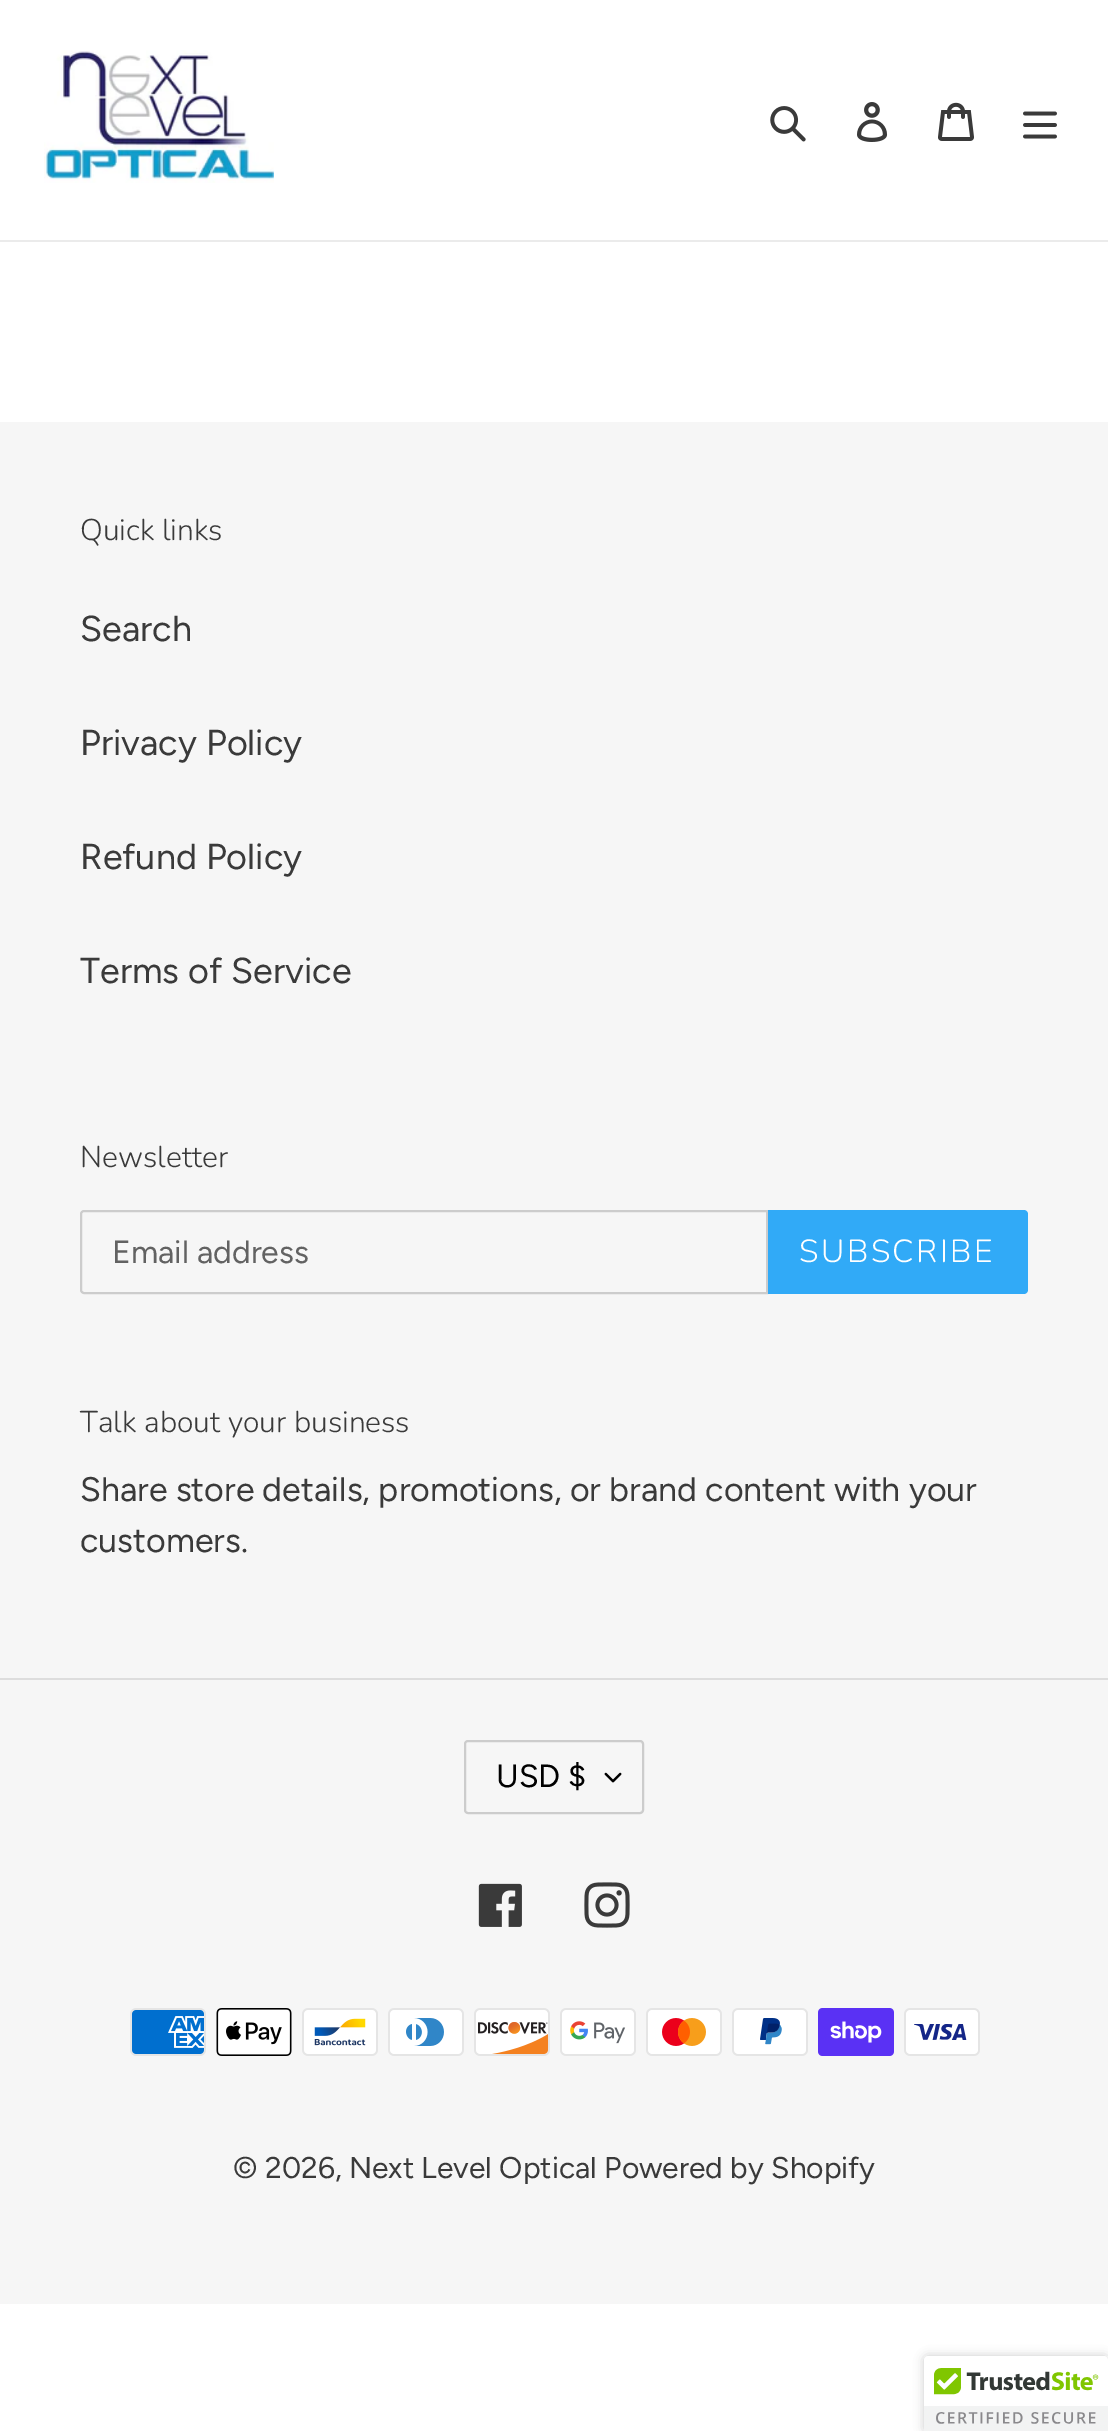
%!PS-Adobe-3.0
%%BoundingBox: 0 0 1108 2431
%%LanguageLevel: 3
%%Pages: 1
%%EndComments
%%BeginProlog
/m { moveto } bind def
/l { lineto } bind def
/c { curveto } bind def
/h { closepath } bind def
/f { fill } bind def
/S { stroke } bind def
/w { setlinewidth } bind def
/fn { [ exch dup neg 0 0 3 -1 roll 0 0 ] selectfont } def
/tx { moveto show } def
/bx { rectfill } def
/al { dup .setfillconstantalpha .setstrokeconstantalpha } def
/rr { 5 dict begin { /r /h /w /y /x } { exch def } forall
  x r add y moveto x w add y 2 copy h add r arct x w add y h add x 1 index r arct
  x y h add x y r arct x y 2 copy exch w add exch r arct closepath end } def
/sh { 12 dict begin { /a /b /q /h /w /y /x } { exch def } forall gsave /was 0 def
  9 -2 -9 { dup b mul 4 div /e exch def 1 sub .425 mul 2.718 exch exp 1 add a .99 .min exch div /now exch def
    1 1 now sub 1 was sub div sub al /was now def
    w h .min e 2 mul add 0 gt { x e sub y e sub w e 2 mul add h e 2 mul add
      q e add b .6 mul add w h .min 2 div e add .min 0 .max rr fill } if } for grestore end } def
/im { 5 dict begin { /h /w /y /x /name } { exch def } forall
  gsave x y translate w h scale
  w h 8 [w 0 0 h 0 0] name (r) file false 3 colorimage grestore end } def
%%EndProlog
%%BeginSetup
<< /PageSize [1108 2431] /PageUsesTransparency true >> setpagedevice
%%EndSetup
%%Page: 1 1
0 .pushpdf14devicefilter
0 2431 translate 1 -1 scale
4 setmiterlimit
1 setgray
0 0 1108 2431 bx
0.922 setgray
0 240 1108 2 bx
(image0.raw) 44 50 230 133 im
(image1.raw) 770 106 36 36 im
(image2.raw) 857 102 31 40 im
(image3.raw) 938 102 36 39 im
(image4.raw) 1023 111 34 28 im
0.965 setgray
0 422 1108 1882 bx
/Nunito-Light 30 fn
0.227 setgray
(Quick links) 80 540 tx
/Figtree-Regular 36 fn
(Search) 80 641 tx
(Privacy Policy) 80 755 tx
(Refund Policy) 80 869 tx
(Terms of Service) 80 983 tx
/Nunito-Light 30 fn
(Newsletter) 80 1167 tx
0.8 setgray
2 w
84 1211 m 767 1211 l 767 1293 l 84 1293 l 82.5 1293 81 1291.5 81 1290 c 81 1214 l 81 1212.5 82.5 1211 84 1211 c h S
/Figtree-Regular 32 fn
0.384 setgray
(Email address) 112 1263 tx
0.192 0.667 0.969 setrgbcolor
768 1210 m 1024 1210 l 1026 1210 1028 1212 1028 1214 c 1028 1290 l 1028 1292 1026 1294 1024 1294 c 768 1294 l h f
/Nunito-Light 32 fn
1 setgray
799 1262 m 2.5 0 (SUBSCRIBE) ashow
/Nunito-Light 30 fn
0.227 setgray
(Talk about your business) 80 1432 tx
/Figtree-Regular 34 fn
(Share store details, promotions, or brand content with your) 80 1501 tx
(customers.) 80 1552 tx
0.867 setgray
0 1678 1108 2 bx
(image5.raw) 604 1772 18 11 im
0.8 setgray
465 1741 178 72 3 rr S
/Figtree-Regular 32 fn
0 setgray
(USD $) 496 1787 tx
(image6.raw) 478 1883 44 44 im
(image7.raw) 584 1882 46 46 im
(image8.raw) 130 2008 76 48 im
(image9.raw) 216 2008 76 48 im
(image10.raw) 302 2008 76 48 im
(image11.raw) 388 2008 76 48 im
(image12.raw) 474 2008 76 48 im
(image13.raw) 560 2008 76 48 im
(image14.raw) 646 2008 76 48 im
(image15.raw) 732 2008 76 48 im
(image16.raw) 818 2008 76 48 im
(image17.raw) 904 2008 76 48 im
/Figtree-Regular 30 fn
0.227 setgray
(© 2026, Next Level Optical Powered by Shopify) 233 2178 tx
0 setgray
924 2356 184 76 4 5 0.2 sh
1 setgray
928 2356 m 1108 2356 l 1108 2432 l 924 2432 l 924 2360 l 924 2358 926 2356 928 2356 c h f
(image18.raw) 924 2356 184 75 im
.poppdf14devicefilter showpage
%%EOF
